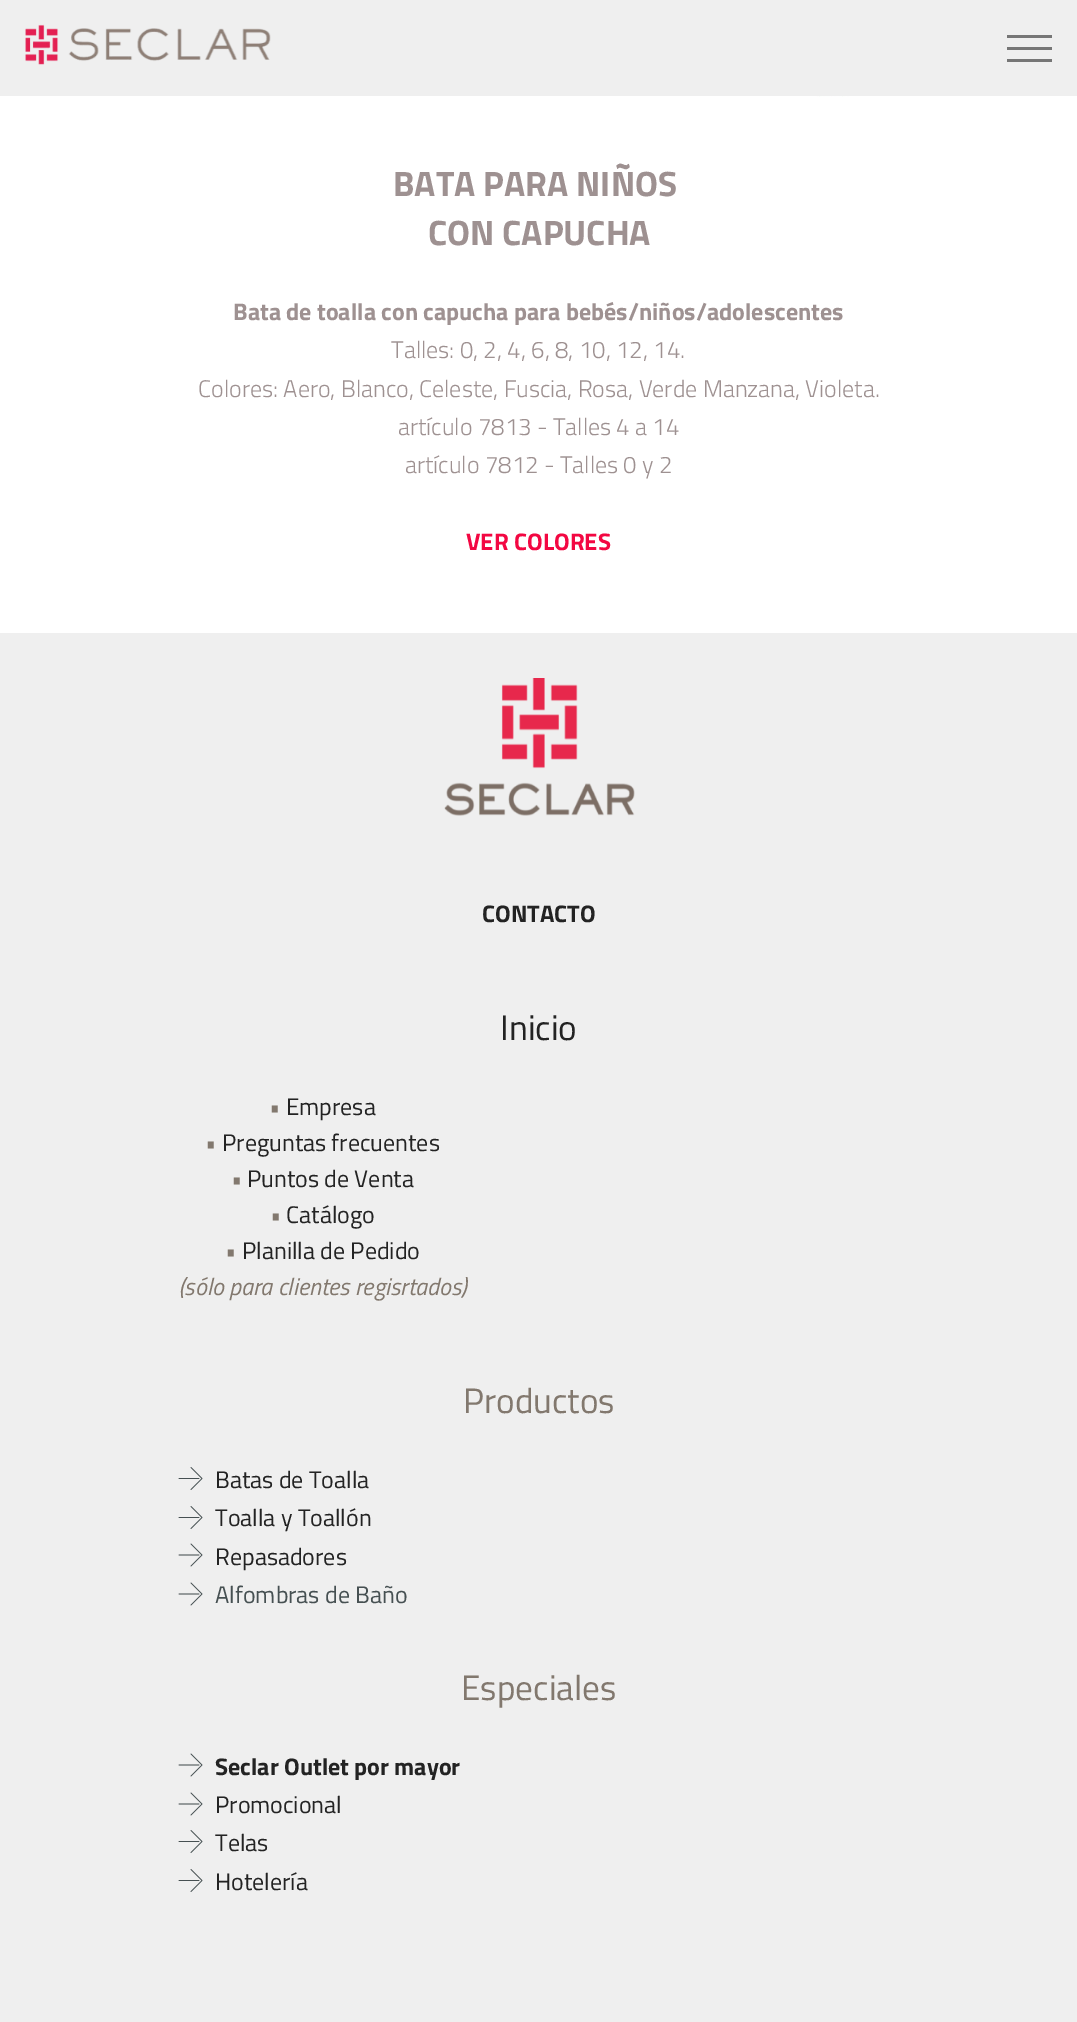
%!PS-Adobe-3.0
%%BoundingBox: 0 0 1077 2022
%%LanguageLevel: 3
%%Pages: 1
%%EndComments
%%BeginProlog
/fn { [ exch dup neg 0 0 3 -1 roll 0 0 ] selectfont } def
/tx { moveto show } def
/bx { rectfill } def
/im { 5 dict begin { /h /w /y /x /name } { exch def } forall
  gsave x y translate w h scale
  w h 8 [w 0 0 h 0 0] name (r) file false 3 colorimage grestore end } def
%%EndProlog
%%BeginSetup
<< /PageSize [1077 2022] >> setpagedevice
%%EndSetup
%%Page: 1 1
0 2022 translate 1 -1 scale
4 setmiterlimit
1 setgray
0 0 1077 2022 bx
0.937 setgray
0 0 1077 96 bx
(image0.raw) 25 24 246 41 im
0.463 setgray
1007 35 45 3 bx
1007 47 45 3 bx
1007 59 45 3 bx
(image1.raw) 108 96 879 1 im
/TitilliumWeb-Bold 35.25 fn
0.62 0.569 0.569 setrgbcolor
(BATA PARA NIÑOS) 393 196 tx
(CON CAPUCHA) 428 245 tx
/TitilliumWeb-Bold 24 fn
(Bata de toalla con capucha para bebés/niños/adolescentes) 233 320 tx
/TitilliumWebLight-Light 24 fn
(Talles: 0, 2, 4, 6, 8, 10, 12, 14.) 391 358 tx
(Colores: Aero, Blanco, Celeste, Fuscia, Rosa, Verde Manzana, Violeta.) 198 397 tx
(artículo 7813 - Talles 4 a 14) 398 435 tx
(artículo 7812 - Talles 0 y 2) 405 473 tx
/TitilliumWeb-Bold 24 fn
0.953 0.027 0.259 setrgbcolor
(VER COLORES) 466 550 tx
0.937 setgray
0 633 1077 1389 bx
(image2.raw) 444 678 191 138 im
0.137 setgray
(CONTACTO) 482 922 tx
/TitilliumWeb-Regular 35.25 fn
(Inicio) 500 1040 tx
/TitilliumWeb-Regular 24 fn
0.51 0.471 0.431 setrgbcolor
(•) 269 1115 tx
0.137 setgray
(Empresa) 286 1115 tx
0.51 0.471 0.431 setrgbcolor
(•) 205 1151 tx
0.137 setgray
(Preguntas frecuentes) 222 1151 tx
0.51 0.471 0.431 setrgbcolor
(•) 231 1187 tx
0.137 setgray
(Puntos de Venta) 247 1187 tx
0.51 0.471 0.431 setrgbcolor
(•) 270 1223 tx
0.137 setgray
(Catálogo) 286 1223 tx
0.51 0.471 0.431 setrgbcolor
(•) 225 1259 tx
0.137 setgray
(Planilla de Pedido) 242 1259 tx
/TitilliumWeb-Italic 24 fn
0.51 0.471 0.431 setrgbcolor
(\(sólo para clientes regisrtados\)) 179 1295 tx
/TitilliumWeb-Regular 35.25 fn
(Productos) 463 1413 tx
(image3.raw) 178 1467 25 23 im
/TitilliumWeb-Regular 24 fn
0.137 setgray
(Batas de Toalla) 215 1488 tx
(image3.raw) 178 1506 25 23 im
(Toalla y Toallón) 215 1526 tx
(image4.raw) 178 1543 25 24 im
(Repasadores) 215 1565 tx
(image4.raw) 178 1582 25 24 im
0.275 0.314 0.322 setrgbcolor
(Alfombras de Baño) 215 1603 tx
/TitilliumWeb-Regular 35.25 fn
0.51 0.471 0.431 setrgbcolor
(Especiales) 461 1700 tx
(image4.raw) 178 1753 25 24 im
/TitilliumWeb-Bold 24 fn
0.137 setgray
(Seclar Outlet por mayor) 215 1775 tx
(image4.raw) 178 1792 25 24 im
/TitilliumWeb-Regular 24 fn
(Promocional) 215 1813 tx
(image3.raw) 178 1830 25 23 im
(Telas) 215 1851 tx
(image3.raw) 178 1869 25 23 im
(Hotelería) 215 1890 tx
showpage
%%EOF
